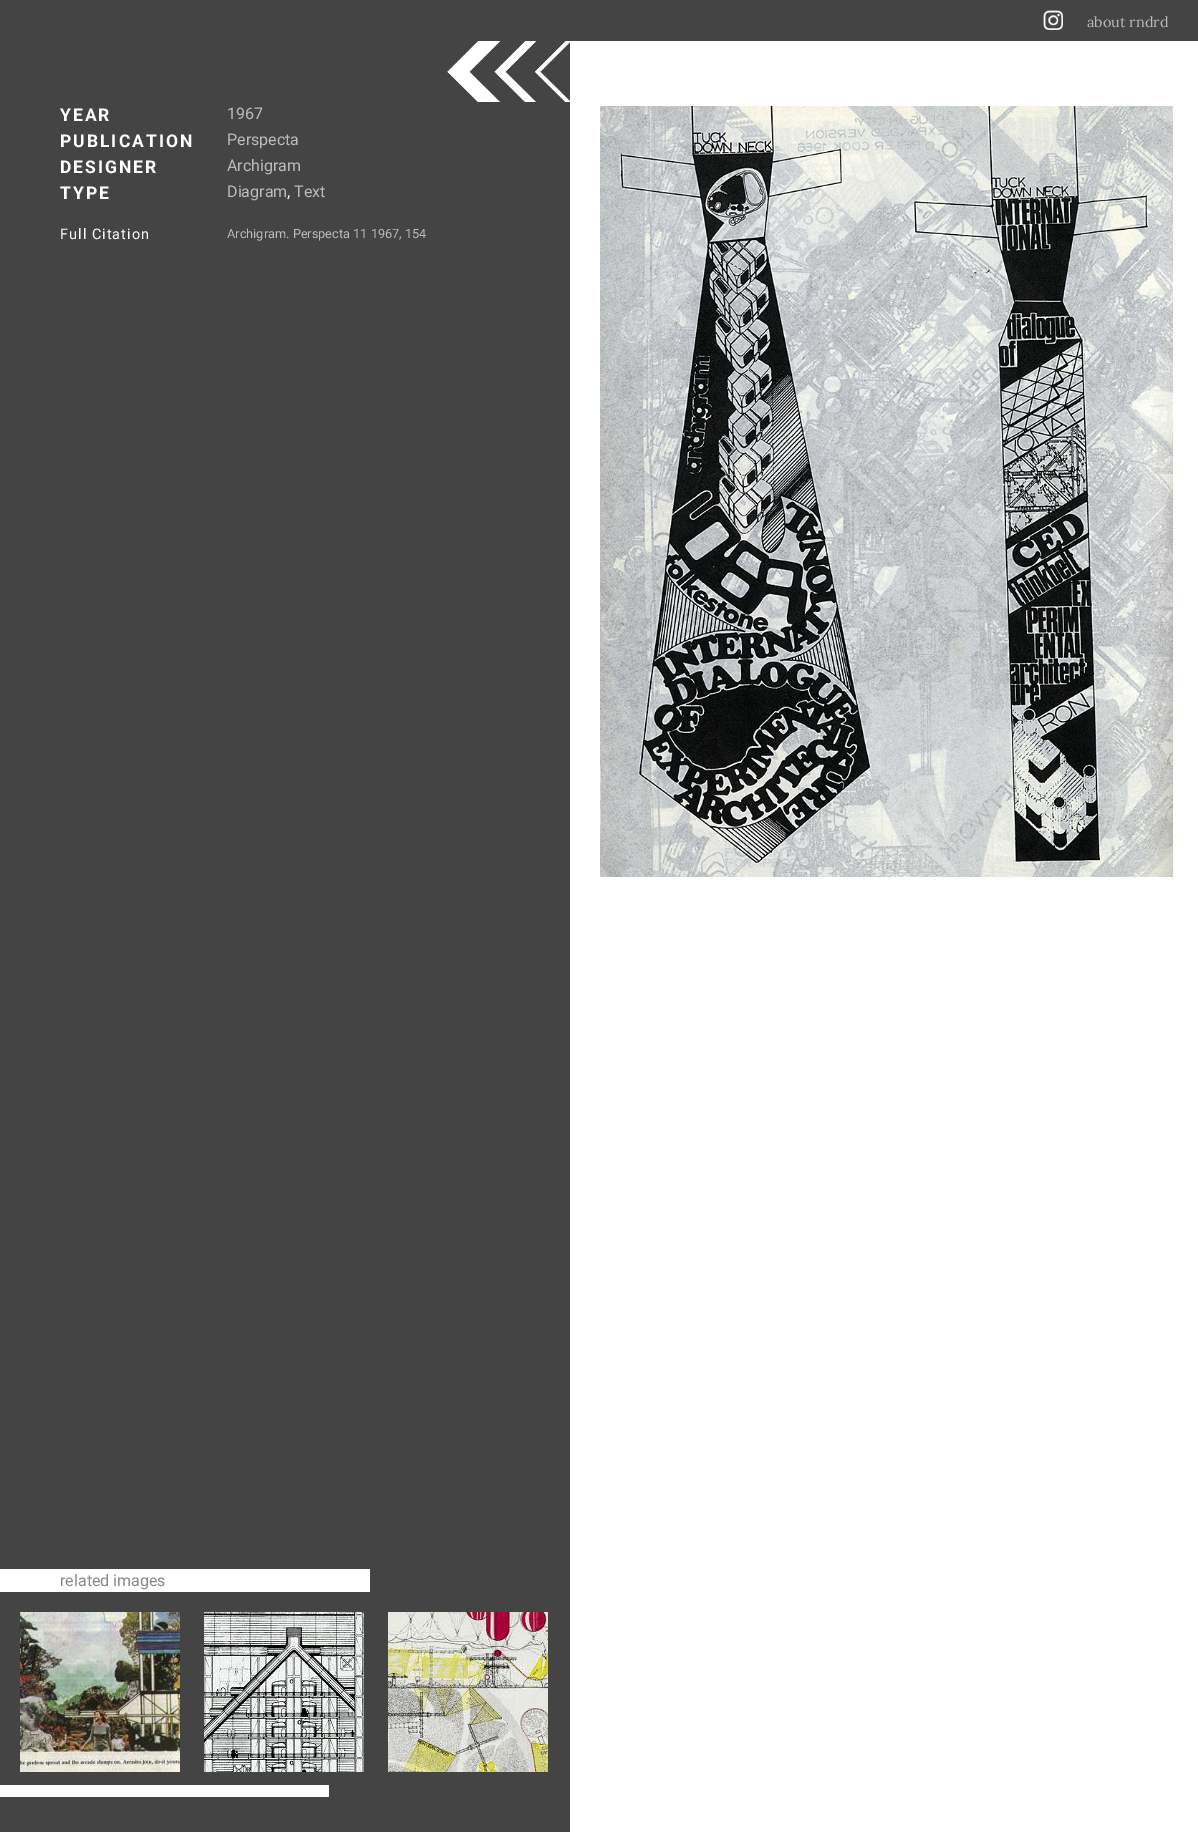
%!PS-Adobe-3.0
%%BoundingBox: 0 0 1198 1832
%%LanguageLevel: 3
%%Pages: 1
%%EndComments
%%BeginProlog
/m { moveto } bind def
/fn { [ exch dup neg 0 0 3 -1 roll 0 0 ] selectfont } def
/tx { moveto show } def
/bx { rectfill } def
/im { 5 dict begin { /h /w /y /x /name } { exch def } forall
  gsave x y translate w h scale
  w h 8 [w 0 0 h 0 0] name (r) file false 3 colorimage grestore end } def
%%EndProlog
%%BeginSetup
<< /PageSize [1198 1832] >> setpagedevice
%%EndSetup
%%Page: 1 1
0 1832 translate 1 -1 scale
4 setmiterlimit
0.267 setgray
0 0 1198 1832 bx
(image0.raw) 1043 10 20 20 im
/Lora-Regular 14.5 fn
0.733 setgray
(about rndrd) 1087 27 tx
/Roboto-Bold 17.5 fn
1 setgray
60 121 m 2 0 (YEAR) ashow
/Roboto-Regular 16 fn
0.733 setgray
(1967) 227 119 tx
/Roboto-Bold 17.5 fn
1 setgray
60 147 m 2 0 (PUBLICATION) ashow
/Roboto-Regular 16 fn
0.733 setgray
(Perspecta) 227 145 tx
/Roboto-Bold 17.5 fn
1 setgray
60 173 m 2 0 (DESIGNER) ashow
/Roboto-Regular 16 fn
0.733 setgray
(Archigram) 227 171 tx
/Roboto-Bold 17.5 fn
1 setgray
60 199 m 2 0 (TYPE) ashow
/Roboto-Regular 16 fn
0.733 setgray
(Diagram) 227 197 tx
1 setgray
(,) 287 197 tx
0.733 setgray
(Text) 294 197 tx
/Roboto-Regular 14.5 fn
1 setgray
60 239 m 1 0 (Full Citation) ashow
/Roboto-Regular 12.75 fn
0.733 setgray
(Archigram. Perspecta 11 1967, 154) 227 238 tx
1 setgray
0 1569 370 23 bx
/Roboto-Regular 16 fn
0.533 setgray
(related images) 60 1586 tx
(image1.raw) 20 1612 160 160 im
(image2.raw) 204 1612 160 160 im
(image3.raw) 388 1612 160 160 im
1 setgray
0 1785 329 12 bx
570 41 628 1791 bx
(image4.raw) 447 41 123 61 im
(image5.raw) 600 106 573 771 im
showpage
%%EOF
